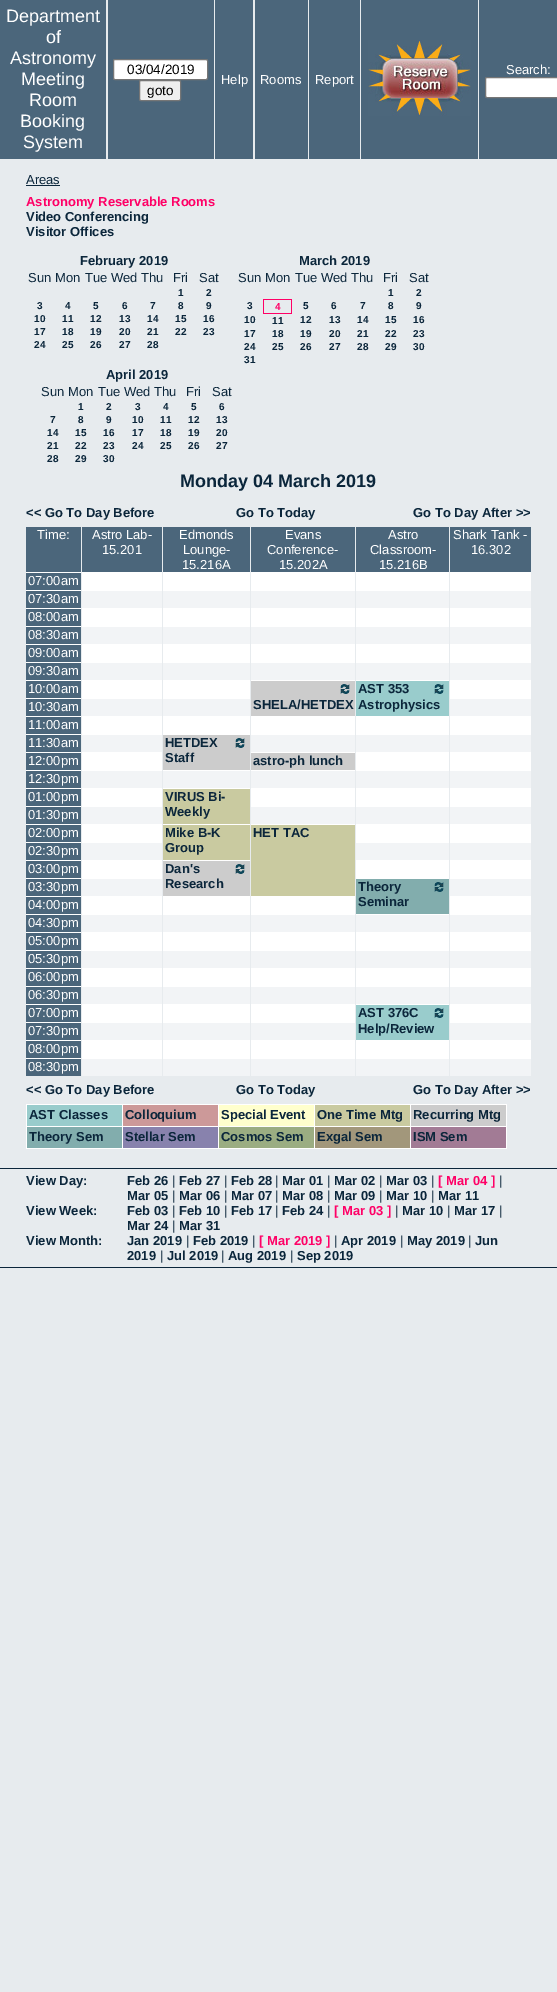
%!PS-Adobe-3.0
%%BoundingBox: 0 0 557 1992
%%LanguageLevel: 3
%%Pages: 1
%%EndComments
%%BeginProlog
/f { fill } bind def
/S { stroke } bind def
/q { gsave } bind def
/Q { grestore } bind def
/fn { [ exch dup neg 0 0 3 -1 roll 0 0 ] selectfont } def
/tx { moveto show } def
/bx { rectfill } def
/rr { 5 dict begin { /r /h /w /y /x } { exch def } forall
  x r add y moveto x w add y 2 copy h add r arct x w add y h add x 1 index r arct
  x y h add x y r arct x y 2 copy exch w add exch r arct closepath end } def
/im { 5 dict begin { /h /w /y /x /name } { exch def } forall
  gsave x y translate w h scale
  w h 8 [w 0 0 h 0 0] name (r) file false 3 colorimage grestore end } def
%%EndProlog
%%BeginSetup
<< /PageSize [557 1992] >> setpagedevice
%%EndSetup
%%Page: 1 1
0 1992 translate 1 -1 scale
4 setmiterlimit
0.906 0.922 0.933 setrgbcolor
0 0 557 1992 bx
0.294 0.4 0.482 setrgbcolor
0 0 106 159 bx
/LiberationSans-Regular 18 fn
1 setgray
(Department) 6 22 tx
(of) 46 43 tx
(Astronomy) 10 64 tx
(Meeting) 21 85 tx
(Room) 29 106 tx
(Booking) 20 127 tx
(System) 23 148 tx
0.294 0.4 0.482 setrgbcolor
108 0 106 159 bx
1 setgray
113.5 59.5 94 20 1.5 rr q f Q
0.463 setgray
S
/LiberationSans-Regular 13.5 fn
0 setgray
(03/04/2019) 127 74 tx
0.937 setgray
139.5 80.5 41 20 1.5 rr q f Q
0.463 setgray
S
0 setgray
(goto) 147 95 tx
0.294 0.4 0.482 setrgbcolor
361 0 117 159 bx
(image0.raw) 368 40 103 76 im
479 0 78 159 bx
/LiberationSans-Regular 13 fn
1 setgray
(Search:) 506 74 tx
485.5 77.5 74 20 1.5 rr q f Q
0.463 setgray
S
0.294 0.4 0.482 setrgbcolor
215 0 38 159 bx
1 setgray
(Help) 221 84 tx
0.294 0.4 0.482 setrgbcolor
255 0 53 159 bx
1 setgray
(Rooms) 260 84 tx
0.294 0.4 0.482 setrgbcolor
309 0 51 159 bx
1 setgray
(Report) 315 84 tx
0.043 0.149 0.231 setrgbcolor
(Areas) 26 184 tx
26 185 34 1 bx
/LiberationSans-Bold 13 fn
1 0 0.4 setrgbcolor
(Astronomy Reservable Rooms) 26 206 tx
0.043 0.149 0.231 setrgbcolor
(Video Conferencing) 26 221 tx
(Visitor Offices) 26 236 tx
(February 2019) 80 265 tx
/LiberationSans-Regular 13 fn
(Sun Mon) 28 282 tx
(Tue Wed Thu) 85 282 tx
(Fri) 173 282 tx
(Sat) 199 282 tx
/LiberationSans-Bold 10 fn
(1) 178 296 tx
(2) 206 296 tx
(3) 37 309 tx
(4) 65 309 tx
(5) 93 309 tx
(6) 122 309 tx
(7) 150 309 tx
(8) 178 309 tx
(9) 206 309 tx
(10) 34 322 tx
(11) 62 322 tx
(12) 90 322 tx
(13) 119 322 tx
(14) 147 322 tx
(15) 175 322 tx
(16) 203 322 tx
(17) 34 335 tx
(18) 62 335 tx
(19) 90 335 tx
(20) 119 335 tx
(21) 147 335 tx
(22) 175 335 tx
(23) 203 335 tx
(24) 34 348 tx
(25) 62 348 tx
(26) 90 348 tx
(27) 119 348 tx
(28) 147 348 tx
/LiberationSans-Bold 13 fn
(March 2019) 299 265 tx
/LiberationSans-Regular 13 fn
(Sun Mon) 238 282 tx
(Tue Wed Thu) 295 282 tx
(Fri) 383 282 tx
(Sat) 409 282 tx
/LiberationSans-Bold 10 fn
(1) 388 296 tx
(2) 416 296 tx
(3) 247 309 tx
1 0 0.4 setrgbcolor
263 299 29 1 bx
291 299 1 15 bx
263 313 29 1 bx
263 299 1 15 bx
(4) 275 310 tx
0.043 0.149 0.231 setrgbcolor
(5) 303 309 tx
(6) 331 309 tx
(7) 360 309 tx
(8) 388 309 tx
(9) 416 309 tx
(10) 244 323 tx
(11) 272 324 tx
(12) 300 323 tx
(13) 329 323 tx
(14) 357 323 tx
(15) 385 323 tx
(16) 413 323 tx
(17) 244 337 tx
(18) 272 337 tx
(19) 300 337 tx
(20) 329 337 tx
(21) 357 337 tx
(22) 385 337 tx
(23) 413 337 tx
(24) 244 350 tx
(25) 272 350 tx
(26) 300 350 tx
(27) 329 350 tx
(28) 357 350 tx
(29) 385 350 tx
(30) 413 350 tx
(31) 244 363 tx
/LiberationSans-Bold 13 fn
(April 2019) 106 379 tx
/LiberationSans-Regular 13 fn
(Sun Mon) 41 396 tx
(Tue Wed Thu) 98 396 tx
(Fri) 186 396 tx
(Sat) 212 396 tx
/LiberationSans-Bold 10 fn
(1) 78 410 tx
(2) 106 410 tx
(3) 135 410 tx
(4) 163 410 tx
(5) 191 410 tx
(6) 219 410 tx
(7) 50 423 tx
(8) 78 423 tx
(9) 106 423 tx
(10) 132 423 tx
(11) 160 423 tx
(12) 188 423 tx
(13) 216 423 tx
(14) 47 436 tx
(15) 75 436 tx
(16) 103 436 tx
(17) 132 436 tx
(18) 160 436 tx
(19) 188 436 tx
(20) 216 436 tx
(21) 47 449 tx
(22) 75 449 tx
(23) 103 449 tx
(24) 132 449 tx
(25) 160 449 tx
(26) 188 449 tx
(27) 216 449 tx
(28) 47 462 tx
(29) 75 462 tx
(30) 103 462 tx
/LiberationSans-Bold 18 fn
(Monday 04 March 2019) 180 487 tx
/LiberationSans-Bold 13 fn
(<< Go To Day Before) 26 517 tx
(Go To Today) 236 517 tx
(Go To Day After >>) 413 517 tx
0.294 0.4 0.482 setrgbcolor
26 527 55 45 bx
/LiberationSans-Regular 13 fn
1 setgray
(Time:) 37 539 tx
0.294 0.4 0.482 setrgbcolor
82 527 80 45 bx
1 setgray
(Astro Lab-) 92 539 tx
(15.201) 102 554 tx
0.294 0.4 0.482 setrgbcolor
163 527 87 45 bx
1 setgray
(Edmonds) 179 539 tx
(Lounge-) 183 554 tx
(15.216A) 182 569 tx
0.294 0.4 0.482 setrgbcolor
251 527 104 45 bx
1 setgray
(Evans) 285 539 tx
(Conference-) 267 554 tx
(15.202A) 279 569 tx
0.294 0.4 0.482 setrgbcolor
356 527 93 45 bx
1 setgray
(Astro) 388 539 tx
(Classroom-) 370 554 tx
(15.216B) 379 569 tx
0.294 0.4 0.482 setrgbcolor
450 527 81 45 bx
1 setgray
(Shark Tank -) 453 539 tx
(16.302) 471 554 tx
0.294 0.4 0.482 setrgbcolor
26 573 55 17 bx
1 setgray
26 572 55 1 bx
(07:00am) 28 585 tx
82 572 80 18 bx
163 572 87 18 bx
251 572 104 18 bx
356 572 93 18 bx
450 572 81 18 bx
0.294 0.4 0.482 setrgbcolor
26 591 55 17 bx
1 setgray
26 590 505 1 bx
(07:30am) 28 603 tx
0.949 0.957 0.965 setrgbcolor
82 591 80 17 bx
0.906 0.922 0.933 setrgbcolor
81 590 1 1 bx
0.949 0.957 0.965 setrgbcolor
163 591 87 17 bx
0.906 0.922 0.933 setrgbcolor
162 590 1 1 bx
0.949 0.957 0.965 setrgbcolor
251 591 104 17 bx
0.906 0.922 0.933 setrgbcolor
250 590 1 1 bx
0.949 0.957 0.965 setrgbcolor
356 591 93 17 bx
0.906 0.922 0.933 setrgbcolor
355 590 1 1 bx
0.949 0.957 0.965 setrgbcolor
450 591 81 17 bx
0.906 0.922 0.933 setrgbcolor
449 590 1 1 bx
0.294 0.4 0.482 setrgbcolor
26 609 55 17 bx
1 setgray
26 608 55 1 bx
(08:00am) 28 621 tx
82 608 80 18 bx
163 608 87 18 bx
251 608 104 18 bx
356 608 93 18 bx
450 608 81 18 bx
0.294 0.4 0.482 setrgbcolor
26 627 55 17 bx
1 setgray
26 626 505 1 bx
(08:30am) 28 639 tx
0.949 0.957 0.965 setrgbcolor
82 627 80 17 bx
0.906 0.922 0.933 setrgbcolor
81 626 1 1 bx
0.949 0.957 0.965 setrgbcolor
163 627 87 17 bx
0.906 0.922 0.933 setrgbcolor
162 626 1 1 bx
0.949 0.957 0.965 setrgbcolor
251 627 104 17 bx
0.906 0.922 0.933 setrgbcolor
250 626 1 1 bx
0.949 0.957 0.965 setrgbcolor
356 627 93 17 bx
0.906 0.922 0.933 setrgbcolor
355 626 1 1 bx
0.949 0.957 0.965 setrgbcolor
450 627 81 17 bx
0.906 0.922 0.933 setrgbcolor
449 626 1 1 bx
0.294 0.4 0.482 setrgbcolor
26 645 55 17 bx
1 setgray
26 644 55 1 bx
(09:00am) 28 657 tx
82 644 80 18 bx
163 644 87 18 bx
251 644 104 18 bx
356 644 93 18 bx
450 644 81 18 bx
0.294 0.4 0.482 setrgbcolor
26 663 55 17 bx
1 setgray
26 662 505 1 bx
(09:30am) 28 675 tx
0.949 0.957 0.965 setrgbcolor
82 663 80 17 bx
0.906 0.922 0.933 setrgbcolor
81 662 1 1 bx
0.949 0.957 0.965 setrgbcolor
163 663 87 17 bx
0.906 0.922 0.933 setrgbcolor
162 662 1 1 bx
0.949 0.957 0.965 setrgbcolor
251 663 104 17 bx
0.906 0.922 0.933 setrgbcolor
250 662 1 1 bx
0.949 0.957 0.965 setrgbcolor
356 663 93 17 bx
0.906 0.922 0.933 setrgbcolor
355 662 1 1 bx
0.949 0.957 0.965 setrgbcolor
450 663 81 17 bx
0.906 0.922 0.933 setrgbcolor
449 662 1 1 bx
0.294 0.4 0.482 setrgbcolor
26 681 55 17 bx
1 setgray
26 680 55 1 bx
(10:00am) 28 693 tx
82 680 80 18 bx
163 680 87 18 bx
0.8 setgray
251 681 104 35 bx
1 setgray
250 680 199 1 bx
0.906 0.922 0.933 setrgbcolor
250 680 1 1 bx
(image1.raw) 340 684 10 10 im
/LiberationSans-Bold 13 fn
0.043 0.149 0.231 setrgbcolor
(SHELA/HETDEX) 253 709 tx
0.6 0.8 0.8 setrgbcolor
356 681 93 35 bx
0.906 0.922 0.933 setrgbcolor
355 680 1 1 bx
0.043 0.149 0.231 setrgbcolor
(AST 353) 358 693 tx
(image2.raw) 434 684 10 10 im
(Astrophysics) 358 709 tx
1 setgray
450 680 81 18 bx
0.294 0.4 0.482 setrgbcolor
26 699 55 17 bx
1 setgray
26 698 224 1 bx
/LiberationSans-Regular 13 fn
(10:30am) 28 711 tx
0.949 0.957 0.965 setrgbcolor
82 699 80 17 bx
0.906 0.922 0.933 setrgbcolor
81 698 1 1 bx
0.949 0.957 0.965 setrgbcolor
163 699 87 17 bx
0.906 0.922 0.933 setrgbcolor
162 698 1 1 bx
0.949 0.957 0.965 setrgbcolor
450 699 81 17 bx
1 setgray
449 698 82 1 bx
0.906 0.922 0.933 setrgbcolor
449 698 1 1 bx
0.294 0.4 0.482 setrgbcolor
26 717 55 17 bx
1 setgray
26 716 55 1 bx
(11:00am) 28 729 tx
82 716 80 18 bx
163 716 87 18 bx
251 716 104 18 bx
356 716 93 18 bx
450 716 81 18 bx
0.294 0.4 0.482 setrgbcolor
26 735 55 17 bx
1 setgray
26 734 505 1 bx
(11:30am) 28 747 tx
0.949 0.957 0.965 setrgbcolor
82 735 80 17 bx
0.906 0.922 0.933 setrgbcolor
81 734 1 1 bx
0.8 setgray
163 735 87 35 bx
0.906 0.922 0.933 setrgbcolor
162 734 1 1 bx
/LiberationSans-Bold 13 fn
0.043 0.149 0.231 setrgbcolor
(HETDEX) 165 747 tx
(image1.raw) 235 738 10 10 im
(Staff) 165 762 tx
0.949 0.957 0.965 setrgbcolor
251 735 104 17 bx
0.906 0.922 0.933 setrgbcolor
250 734 1 1 bx
0.949 0.957 0.965 setrgbcolor
356 735 93 17 bx
0.906 0.922 0.933 setrgbcolor
355 734 1 1 bx
0.949 0.957 0.965 setrgbcolor
450 735 81 17 bx
0.906 0.922 0.933 setrgbcolor
449 734 1 1 bx
0.294 0.4 0.482 setrgbcolor
26 753 55 17 bx
1 setgray
26 752 55 1 bx
/LiberationSans-Regular 13 fn
(12:00pm) 28 765 tx
82 752 80 18 bx
0.8 setgray
251 753 104 17 bx
1 setgray
250 752 105 1 bx
0.906 0.922 0.933 setrgbcolor
250 752 1 1 bx
/LiberationSans-Bold 13 fn
0.043 0.149 0.231 setrgbcolor
(astro-ph lunch) 253 765 tx
1 setgray
356 752 93 18 bx
450 752 81 18 bx
0.294 0.4 0.482 setrgbcolor
26 771 55 17 bx
1 setgray
26 770 505 1 bx
/LiberationSans-Regular 13 fn
(12:30pm) 28 783 tx
0.949 0.957 0.965 setrgbcolor
82 771 80 17 bx
0.906 0.922 0.933 setrgbcolor
81 770 1 1 bx
0.949 0.957 0.965 setrgbcolor
163 771 87 17 bx
0.906 0.922 0.933 setrgbcolor
162 770 1 1 bx
0.949 0.957 0.965 setrgbcolor
251 771 104 17 bx
0.906 0.922 0.933 setrgbcolor
250 770 1 1 bx
0.949 0.957 0.965 setrgbcolor
356 771 93 17 bx
0.906 0.922 0.933 setrgbcolor
355 770 1 1 bx
0.949 0.957 0.965 setrgbcolor
450 771 81 17 bx
0.906 0.922 0.933 setrgbcolor
449 770 1 1 bx
0.294 0.4 0.482 setrgbcolor
26 789 55 17 bx
1 setgray
26 788 55 1 bx
(01:00pm) 28 801 tx
82 788 80 18 bx
0.788 0.792 0.627 setrgbcolor
163 789 87 35 bx
1 setgray
162 788 88 1 bx
0.906 0.922 0.933 setrgbcolor
162 788 1 1 bx
/LiberationSans-Bold 13 fn
0.043 0.149 0.231 setrgbcolor
(VIRUS Bi-) 165 801 tx
(Weekly) 165 816 tx
1 setgray
251 788 104 18 bx
356 788 93 18 bx
450 788 81 18 bx
0.949 0.957 0.965 setrgbcolor
82 807 80 17 bx
1 setgray
26 806 136 1 bx
0.906 0.922 0.933 setrgbcolor
81 806 1 1 bx
0.949 0.957 0.965 setrgbcolor
251 807 104 17 bx
1 setgray
250 806 281 1 bx
0.906 0.922 0.933 setrgbcolor
250 806 1 1 bx
0.294 0.4 0.482 setrgbcolor
26 807 55 17 bx
/LiberationSans-Regular 13 fn
1 setgray
(01:30pm) 28 819 tx
0.949 0.957 0.965 setrgbcolor
356 807 93 17 bx
0.906 0.922 0.933 setrgbcolor
355 806 1 1 bx
0.949 0.957 0.965 setrgbcolor
450 807 81 17 bx
0.906 0.922 0.933 setrgbcolor
449 806 1 1 bx
0.294 0.4 0.482 setrgbcolor
26 825 55 17 bx
1 setgray
26 824 55 1 bx
(02:00pm) 28 837 tx
82 824 80 18 bx
0.788 0.792 0.627 setrgbcolor
163 825 87 35 bx
1 setgray
162 824 193 1 bx
0.906 0.922 0.933 setrgbcolor
162 824 1 1 bx
/LiberationSans-Bold 13 fn
0.043 0.149 0.231 setrgbcolor
(Mike B-K) 165 837 tx
(Group) 165 852 tx
0.788 0.792 0.627 setrgbcolor
251 825 104 71 bx
0.906 0.922 0.933 setrgbcolor
250 824 1 1 bx
0.043 0.149 0.231 setrgbcolor
(HET TAC) 253 837 tx
1 setgray
356 824 93 18 bx
450 824 81 18 bx
0.949 0.957 0.965 setrgbcolor
82 843 80 17 bx
1 setgray
26 842 136 1 bx
0.906 0.922 0.933 setrgbcolor
81 842 1 1 bx
0.949 0.957 0.965 setrgbcolor
356 843 93 17 bx
1 setgray
355 842 176 1 bx
0.906 0.922 0.933 setrgbcolor
355 842 1 1 bx
0.294 0.4 0.482 setrgbcolor
26 843 55 17 bx
/LiberationSans-Regular 13 fn
1 setgray
(02:30pm) 28 855 tx
0.949 0.957 0.965 setrgbcolor
450 843 81 17 bx
0.906 0.922 0.933 setrgbcolor
449 842 1 1 bx
0.294 0.4 0.482 setrgbcolor
26 861 55 17 bx
1 setgray
26 860 55 1 bx
(03:00pm) 28 873 tx
82 860 80 18 bx
0.8 setgray
163 861 87 35 bx
1 setgray
162 860 88 1 bx
0.906 0.922 0.933 setrgbcolor
162 860 1 1 bx
/LiberationSans-Bold 13 fn
0.043 0.149 0.231 setrgbcolor
(Dan's) 165 873 tx
(image1.raw) 235 864 10 10 im
(Research) 165 888 tx
1 setgray
356 860 93 18 bx
450 860 81 18 bx
0.294 0.4 0.482 setrgbcolor
26 879 55 17 bx
1 setgray
26 878 136 1 bx
/LiberationSans-Regular 13 fn
(03:30pm) 28 891 tx
0.949 0.957 0.965 setrgbcolor
82 879 80 17 bx
0.906 0.922 0.933 setrgbcolor
81 878 1 1 bx
0.51 0.678 0.678 setrgbcolor
356 879 93 35 bx
1 setgray
355 878 176 1 bx
0.906 0.922 0.933 setrgbcolor
355 878 1 1 bx
/LiberationSans-Bold 13 fn
0.043 0.149 0.231 setrgbcolor
(Theory) 358 891 tx
(image3.raw) 434 882 10 10 im
(Seminar) 358 906 tx
0.949 0.957 0.965 setrgbcolor
450 879 81 17 bx
0.906 0.922 0.933 setrgbcolor
449 878 1 1 bx
0.294 0.4 0.482 setrgbcolor
26 897 55 17 bx
1 setgray
26 896 55 1 bx
/LiberationSans-Regular 13 fn
(04:00pm) 28 909 tx
82 896 80 18 bx
163 896 87 18 bx
251 896 104 18 bx
450 896 81 18 bx
0.294 0.4 0.482 setrgbcolor
26 915 55 17 bx
1 setgray
26 914 505 1 bx
(04:30pm) 28 927 tx
0.949 0.957 0.965 setrgbcolor
82 915 80 17 bx
0.906 0.922 0.933 setrgbcolor
81 914 1 1 bx
0.949 0.957 0.965 setrgbcolor
163 915 87 17 bx
0.906 0.922 0.933 setrgbcolor
162 914 1 1 bx
0.949 0.957 0.965 setrgbcolor
251 915 104 17 bx
0.906 0.922 0.933 setrgbcolor
250 914 1 1 bx
0.949 0.957 0.965 setrgbcolor
356 915 93 17 bx
0.906 0.922 0.933 setrgbcolor
355 914 1 1 bx
0.949 0.957 0.965 setrgbcolor
450 915 81 17 bx
0.906 0.922 0.933 setrgbcolor
449 914 1 1 bx
0.294 0.4 0.482 setrgbcolor
26 933 55 17 bx
1 setgray
26 932 55 1 bx
(05:00pm) 28 945 tx
82 932 80 18 bx
163 932 87 18 bx
251 932 104 18 bx
356 932 93 18 bx
450 932 81 18 bx
0.294 0.4 0.482 setrgbcolor
26 951 55 17 bx
1 setgray
26 950 505 1 bx
(05:30pm) 28 963 tx
0.949 0.957 0.965 setrgbcolor
82 951 80 17 bx
0.906 0.922 0.933 setrgbcolor
81 950 1 1 bx
0.949 0.957 0.965 setrgbcolor
163 951 87 17 bx
0.906 0.922 0.933 setrgbcolor
162 950 1 1 bx
0.949 0.957 0.965 setrgbcolor
251 951 104 17 bx
0.906 0.922 0.933 setrgbcolor
250 950 1 1 bx
0.949 0.957 0.965 setrgbcolor
356 951 93 17 bx
0.906 0.922 0.933 setrgbcolor
355 950 1 1 bx
0.949 0.957 0.965 setrgbcolor
450 951 81 17 bx
0.906 0.922 0.933 setrgbcolor
449 950 1 1 bx
0.294 0.4 0.482 setrgbcolor
26 969 55 17 bx
1 setgray
26 968 55 1 bx
(06:00pm) 28 981 tx
82 968 80 18 bx
163 968 87 18 bx
251 968 104 18 bx
356 968 93 18 bx
450 968 81 18 bx
0.294 0.4 0.482 setrgbcolor
26 987 55 17 bx
1 setgray
26 986 505 1 bx
(06:30pm) 28 999 tx
0.949 0.957 0.965 setrgbcolor
82 987 80 17 bx
0.906 0.922 0.933 setrgbcolor
81 986 1 1 bx
0.949 0.957 0.965 setrgbcolor
163 987 87 17 bx
0.906 0.922 0.933 setrgbcolor
162 986 1 1 bx
0.949 0.957 0.965 setrgbcolor
251 987 104 17 bx
0.906 0.922 0.933 setrgbcolor
250 986 1 1 bx
0.949 0.957 0.965 setrgbcolor
356 987 93 17 bx
0.906 0.922 0.933 setrgbcolor
355 986 1 1 bx
0.949 0.957 0.965 setrgbcolor
450 987 81 17 bx
0.906 0.922 0.933 setrgbcolor
449 986 1 1 bx
0.294 0.4 0.482 setrgbcolor
26 1005 55 17 bx
1 setgray
26 1004 55 1 bx
(07:00pm) 28 1017 tx
82 1004 80 18 bx
163 1004 87 18 bx
251 1004 104 18 bx
0.6 0.8 0.8 setrgbcolor
356 1005 93 35 bx
1 setgray
355 1004 94 1 bx
0.906 0.922 0.933 setrgbcolor
355 1004 1 1 bx
/LiberationSans-Bold 13 fn
0.043 0.149 0.231 setrgbcolor
(AST 376C) 358 1017 tx
(image2.raw) 434 1008 10 10 im
(Help/Review) 358 1033 tx
1 setgray
450 1004 81 18 bx
0.294 0.4 0.482 setrgbcolor
26 1023 55 17 bx
1 setgray
26 1022 329 1 bx
/LiberationSans-Regular 13 fn
(07:30pm) 28 1035 tx
0.949 0.957 0.965 setrgbcolor
82 1023 80 17 bx
0.906 0.922 0.933 setrgbcolor
81 1022 1 1 bx
0.949 0.957 0.965 setrgbcolor
163 1023 87 17 bx
0.906 0.922 0.933 setrgbcolor
162 1022 1 1 bx
0.949 0.957 0.965 setrgbcolor
251 1023 104 17 bx
0.906 0.922 0.933 setrgbcolor
250 1022 1 1 bx
0.949 0.957 0.965 setrgbcolor
450 1023 81 17 bx
1 setgray
449 1022 82 1 bx
0.906 0.922 0.933 setrgbcolor
449 1022 1 1 bx
0.294 0.4 0.482 setrgbcolor
26 1041 55 17 bx
1 setgray
26 1040 55 1 bx
(08:00pm) 28 1053 tx
82 1040 80 18 bx
163 1040 87 18 bx
251 1040 104 18 bx
356 1040 93 18 bx
450 1040 81 18 bx
0.294 0.4 0.482 setrgbcolor
26 1059 55 17 bx
1 setgray
26 1058 505 1 bx
(08:30pm) 28 1071 tx
0.949 0.957 0.965 setrgbcolor
82 1059 80 17 bx
0.906 0.922 0.933 setrgbcolor
81 1058 1 1 bx
0.949 0.957 0.965 setrgbcolor
163 1059 87 17 bx
0.906 0.922 0.933 setrgbcolor
162 1058 1 1 bx
0.949 0.957 0.965 setrgbcolor
251 1059 104 17 bx
0.906 0.922 0.933 setrgbcolor
250 1058 1 1 bx
0.949 0.957 0.965 setrgbcolor
356 1059 93 17 bx
0.906 0.922 0.933 setrgbcolor
355 1058 1 1 bx
0.949 0.957 0.965 setrgbcolor
450 1059 81 17 bx
0.906 0.922 0.933 setrgbcolor
449 1058 1 1 bx
/LiberationSans-Bold 13 fn
0.043 0.149 0.231 setrgbcolor
(<< Go To Day Before) 26 1094 tx
(Go To Today) 236 1094 tx
(Go To Day After >>) 413 1094 tx
0.6 0.8 0.8 setrgbcolor
27 1105 95 21 bx
1 setgray
410 1104 97 1 bx
410 1126 97 1 bx
506 1126 1 23 bx
410 1148 97 1 bx
410 1126 1 23 bx
314 1126 97 1 bx
410 1104 1 23 bx
314 1104 97 1 bx
314 1148 97 1 bx
314 1126 1 23 bx
218 1126 97 1 bx
314 1104 1 23 bx
218 1104 97 1 bx
218 1148 97 1 bx
218 1126 1 23 bx
122 1126 97 1 bx
218 1104 1 23 bx
122 1104 97 1 bx
122 1148 97 1 bx
122 1126 1 23 bx
26 1126 97 1 bx
122 1104 1 23 bx
26 1104 97 1 bx
26 1148 97 1 bx
26 1126 1 23 bx
26 1104 1 23 bx
0.043 0.149 0.231 setrgbcolor
(AST Classes) 29 1119 tx
0.8 0.6 0.6 setrgbcolor
123 1105 95 21 bx
0.043 0.149 0.231 setrgbcolor
(Colloquium) 125 1119 tx
1 1 0.804 setrgbcolor
219 1105 95 21 bx
0.043 0.149 0.231 setrgbcolor
(Special Event) 221 1119 tx
0.788 0.792 0.627 setrgbcolor
315 1105 95 21 bx
0.043 0.149 0.231 setrgbcolor
(One Time Mtg) 317 1119 tx
0.8 setgray
411 1105 95 21 bx
1 setgray
506 1104 1 23 bx
0.043 0.149 0.231 setrgbcolor
(Recurring Mtg) 413 1119 tx
0.51 0.678 0.678 setrgbcolor
27 1127 95 21 bx
0.043 0.149 0.231 setrgbcolor
(Theory Sem) 29 1141 tx
0.533 0.51 0.678 setrgbcolor
123 1127 95 21 bx
0.043 0.149 0.231 setrgbcolor
(Stellar Sem) 125 1141 tx
0.608 0.678 0.51 setrgbcolor
219 1127 95 21 bx
0.043 0.149 0.231 setrgbcolor
(Cosmos Sem) 221 1141 tx
0.635 0.592 0.482 setrgbcolor
315 1127 95 21 bx
0.043 0.149 0.231 setrgbcolor
(Exgal Sem) 317 1141 tx
0.635 0.482 0.584 setrgbcolor
411 1127 95 21 bx
0.043 0.149 0.231 setrgbcolor
(ISM Sem) 413 1141 tx
0 1168 557 1 bx
0 1267 557 1 bx
(View Day:) 26 1185 tx
(Feb 26) 127 1185 tx
/LiberationSans-Regular 13 fn
(|) 172 1185 tx
/LiberationSans-Bold 13 fn
(Feb 27) 179 1185 tx
/LiberationSans-Regular 13 fn
(|) 224 1185 tx
/LiberationSans-Bold 13 fn
(Feb 28) 231 1185 tx
/LiberationSans-Regular 13 fn
(|) 275 1185 tx
/LiberationSans-Bold 13 fn
(Mar 01) 282 1185 tx
/LiberationSans-Regular 13 fn
(|) 327 1185 tx
/LiberationSans-Bold 13 fn
(Mar 02) 334 1185 tx
/LiberationSans-Regular 13 fn
(|) 379 1185 tx
/LiberationSans-Bold 13 fn
(Mar 03) 386 1185 tx
/LiberationSans-Regular 13 fn
(|) 431 1185 tx
/LiberationSans-Bold 13 fn
1 0 0.4 setrgbcolor
([ Mar 04 ]) 438 1185 tx
/LiberationSans-Regular 13 fn
0.043 0.149 0.231 setrgbcolor
(|) 499 1185 tx
/LiberationSans-Bold 13 fn
(Mar 05) 127 1200 tx
/LiberationSans-Regular 13 fn
(|) 172 1200 tx
/LiberationSans-Bold 13 fn
(Mar 06) 179 1200 tx
/LiberationSans-Regular 13 fn
(|) 224 1200 tx
/LiberationSans-Bold 13 fn
(Mar 07) 231 1200 tx
/LiberationSans-Regular 13 fn
(|) 275 1200 tx
/LiberationSans-Bold 13 fn
(Mar 08) 282 1200 tx
/LiberationSans-Regular 13 fn
(|) 327 1200 tx
/LiberationSans-Bold 13 fn
(Mar 09) 334 1200 tx
/LiberationSans-Regular 13 fn
(|) 379 1200 tx
/LiberationSans-Bold 13 fn
(Mar 10) 386 1200 tx
/LiberationSans-Regular 13 fn
(|) 431 1200 tx
/LiberationSans-Bold 13 fn
(Mar 11) 438 1200 tx
(View Week:) 26 1215 tx
(Feb 03) 127 1215 tx
/LiberationSans-Regular 13 fn
(|) 172 1215 tx
/LiberationSans-Bold 13 fn
(Feb 10) 179 1215 tx
/LiberationSans-Regular 13 fn
(|) 224 1215 tx
/LiberationSans-Bold 13 fn
(Feb 17) 231 1215 tx
/LiberationSans-Regular 13 fn
(|) 275 1215 tx
/LiberationSans-Bold 13 fn
(Feb 24) 282 1215 tx
/LiberationSans-Regular 13 fn
(|) 327 1215 tx
/LiberationSans-Bold 13 fn
1 0 0.4 setrgbcolor
([ Mar 03 ]) 334 1215 tx
/LiberationSans-Regular 13 fn
0.043 0.149 0.231 setrgbcolor
(|) 395 1215 tx
/LiberationSans-Bold 13 fn
(Mar 10) 402 1215 tx
/LiberationSans-Regular 13 fn
(|) 447 1215 tx
/LiberationSans-Bold 13 fn
(Mar 17) 454 1215 tx
/LiberationSans-Regular 13 fn
(|) 499 1215 tx
/LiberationSans-Bold 13 fn
(Mar 24) 127 1230 tx
/LiberationSans-Regular 13 fn
(|) 172 1230 tx
/LiberationSans-Bold 13 fn
(Mar 31) 179 1230 tx
(View Month:) 26 1245 tx
(Jan 2019) 127 1245 tx
/LiberationSans-Regular 13 fn
(|) 186 1245 tx
/LiberationSans-Bold 13 fn
(Feb 2019) 193 1245 tx
/LiberationSans-Regular 13 fn
(|) 252 1245 tx
/LiberationSans-Bold 13 fn
1 0 0.4 setrgbcolor
([ Mar 2019 ]) 259 1245 tx
/LiberationSans-Regular 13 fn
0.043 0.149 0.231 setrgbcolor
(|) 334 1245 tx
/LiberationSans-Bold 13 fn
(Apr 2019) 341 1245 tx
/LiberationSans-Regular 13 fn
(|) 400 1245 tx
/LiberationSans-Bold 13 fn
(May 2019) 407 1245 tx
/LiberationSans-Regular 13 fn
(|) 468 1245 tx
/LiberationSans-Bold 13 fn
(Jun) 475 1245 tx
(2019) 127 1260 tx
/LiberationSans-Regular 13 fn
(|) 160 1260 tx
/LiberationSans-Bold 13 fn
(Jul 2019) 167 1260 tx
/LiberationSans-Regular 13 fn
(|) 221 1260 tx
/LiberationSans-Bold 13 fn
(Aug 2019) 228 1260 tx
/LiberationSans-Regular 13 fn
(|) 290 1260 tx
/LiberationSans-Bold 13 fn
(Sep 2019) 297 1260 tx
showpage
%%EOF
